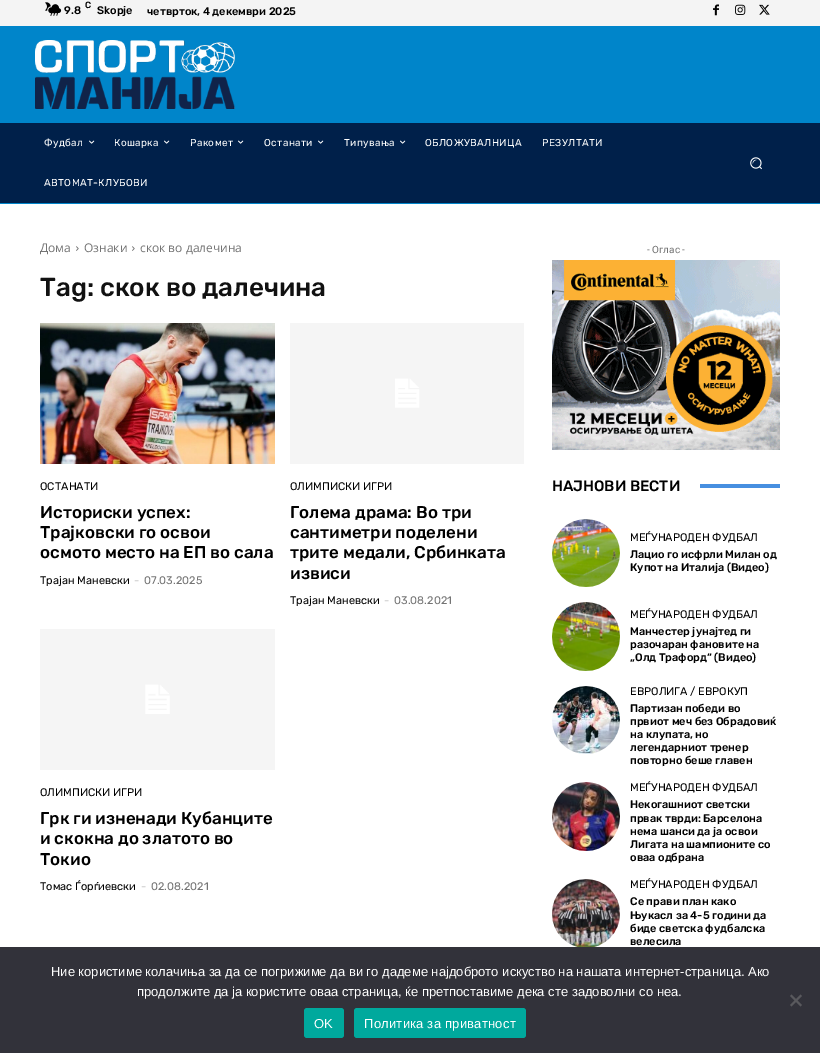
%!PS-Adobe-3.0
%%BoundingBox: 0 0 820 1053
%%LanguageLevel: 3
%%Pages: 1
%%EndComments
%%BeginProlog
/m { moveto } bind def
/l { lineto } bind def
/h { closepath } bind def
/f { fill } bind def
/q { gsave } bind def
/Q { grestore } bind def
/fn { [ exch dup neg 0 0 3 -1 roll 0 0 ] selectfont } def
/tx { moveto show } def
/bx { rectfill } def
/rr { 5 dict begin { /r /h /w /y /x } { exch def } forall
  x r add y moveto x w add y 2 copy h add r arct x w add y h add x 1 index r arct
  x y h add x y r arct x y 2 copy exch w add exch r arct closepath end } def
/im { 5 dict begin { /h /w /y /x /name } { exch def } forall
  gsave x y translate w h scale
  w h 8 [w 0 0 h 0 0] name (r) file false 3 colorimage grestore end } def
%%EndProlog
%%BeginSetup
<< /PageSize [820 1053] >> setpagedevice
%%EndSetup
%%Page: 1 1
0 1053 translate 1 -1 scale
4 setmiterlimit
1 setgray
0 0 820 1053 bx
0.957 setgray
0 0 820 26 bx
(image0.raw) 45 2 17 14 im
/Rubik-Medium 9 fn
0 setgray
(C) 85 8 tx
/Rubik-Medium 11 fn
(9.8) 64 14 tx
(Skopje) 97 14 tx
(четврток, 4 декември 2025) 147 15 tx
(image1.raw) 713 4 6 12 im
(image2.raw) 735 4 11 11 im
(image3.raw) 759 4 11 11 im
q 0 26 m 820 26 l 820 179 l 0 179 l h clip newpath
<< /ShadingType 2 /ColorSpace /DeviceRGB /Coords [410 214 410 -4] /Extend [true true] /Function << /FunctionType 3 /Domain [0 1] /Functions [<< /FunctionType 2 /Domain [0 1] /C0 [1 1 1] /C1 [1 1 1] /N 1 >> << /FunctionType 2 /Domain [0 1] /C0 [1 1 1] /C1 [0 0.522 0.792] /N 1 >> << /FunctionType 2 /Domain [0 1] /C0 [0 0.522 0.792] /C1 [0 0.522 0.792] /N 1 >>] /Bounds [0.16 0.27] /Encode [0 1 0 1 0 1] >> >> shfill Q
(image4.raw) 35 40 200 69 im
0 0.125 0.29 setrgbcolor
0 123 820 80 bx
/Rubik-Regular 10 fn
1 setgray
44 146 m 0.4 0 (Фудбал) ashow
(image5.raw) 89 140 6 4 im
114 146 m 0.4 0 (Кошарка) ashow
(image5.raw) 164 140 6 4 im
190 146 m 0.4 0 (Ракомет) ashow
(image5.raw) 238 140 6 4 im
264 146 m 0.4 0 (Останати) ashow
(image5.raw) 318 140 6 4 im
344 146 m 0.4 0 (Типувања) ashow
(image5.raw) 400 140 6 4 im
425 146 m 0.4 0 (ОБЛОЖУВАЛНИЦА) ashow
542 146 m 0.4 0 (РЕЗУЛТАТИ) ashow
44 186 m 0.4 0 (АВТОМАТ-КЛУБОВИ) ashow
(image6.raw) 750 157 12 13 im
0 0.522 0.792 setrgbcolor
0 203 820 1 bx
/OpenSans-Regular 12 fn
0.455 setgray
(Дома) 40 252 tx
(image7.raw) 76 246 3 5 im
(Ознаки) 84 252 tx
(image7.raw) 132 246 3 5 im
(скок во далечина) 140 252 tx
/Rubik-Medium 26 fn
0.067 setgray
(Tag: скок во далечина) 40 296 tx
(image8.raw) 40 323 235 141 im
/Rubik-Regular 11 fn
0 setgray
(ОСТАНАТИ) 40 490 tx
/Rubik-Medium 17 fn
(Историски успех:) 40 518 tx
(Трајковски го освои) 40 538 tx
(осмото место на ЕП во сала) 40 558 tx
/Rubik-Regular 11 fn
(Трајан Маневски) 40 584 tx
0.8 setgray
(-) 134 584 tx
0.455 setgray
(07.03.2025) 144 584 tx
(image9.raw) 290 323 234 141 im
0 setgray
(ОЛИМПИСКИ ИГРИ) 290 490 tx
/Rubik-Medium 17 fn
(Голема драма: Во три) 290 518 tx
(сантиметри поделени) 290 538 tx
(трите медали, Србинката) 290 558 tx
(извиси) 290 579 tx
/Rubik-Regular 11 fn
(Трајан Маневски) 290 604 tx
0.8 setgray
(-) 384 604 tx
0.455 setgray
(03.08.2021) 394 604 tx
(image10.raw) 40 629 235 141 im
0 setgray
(ОЛИМПИСКИ ИГРИ) 40 796 tx
/Rubik-Medium 17 fn
(Грк ги изненади Кубанците) 40 824 tx
(и скокна до златото во) 40 844 tx
(Токио) 40 865 tx
/Rubik-Regular 11 fn
(Томас Ѓорѓиевски) 40 890 tx
0.8 setgray
(-) 141 890 tx
0.455 setgray
(02.08.2021) 151 890 tx
/Roboto-Regular 10 fn
(- Оглас -) 647 253 tx
(image11.raw) 552 260 228 190 im
/Rubik-Medium 15 fn
0 setgray
(НАЈНОВИ ВЕСТИ) 552 491 tx
0.278 0.561 0.878 setrgbcolor
700 484 80 4 bx
(image12.raw) 552 519 68 68 im
/Rubik-Regular 11 fn
0 setgray
(МЕЃУНАРОДЕН ФУДБАЛ) 630 541 tx
/Rubik-Medium 11 fn
(Лацио го исфрли Милан од) 630 558 tx
(Купот на Италија \(Видео\)) 630 571 tx
(image13.raw) 552 602 68 69 im
/Rubik-Regular 11 fn
(МЕЃУНАРОДЕН ФУДБАЛ) 630 618 tx
/Rubik-Medium 11 fn
(Манчестер јунајтед ги) 630 635 tx
(разочаран фановите на) 630 648 tx
(„Олд Трафорд“ \(Видео\)) 630 661 tx
(image14.raw) 552 686 68 68 im
/Rubik-Regular 11 fn
(ЕВРОЛИГА / ЕВРОКУП) 630 695 tx
/Rubik-Medium 11 fn
(Партизан победи во) 630 712 tx
(првиот меч без Обрадовиќ) 630 725 tx
(на клупата, но) 630 738 tx
(легендарниот тренер) 630 751 tx
(повторно беше главен) 630 764 tx
(image15.raw) 552 782 68 69 im
/Rubik-Regular 11 fn
(МЕЃУНАРОДЕН ФУДБАЛ) 630 791 tx
/Rubik-Medium 11 fn
(Некогашниот светски) 630 808 tx
(првак тврди: Барселона) 630 822 tx
(нема шанси да ја освои) 630 835 tx
(Лигата на шампионите со) 630 848 tx
(оваа одбрана) 630 861 tx
(image16.raw) 552 879 68 68 im
/Rubik-Regular 11 fn
(МЕЃУНАРОДЕН ФУДБАЛ) 630 888 tx
/Rubik-Medium 11 fn
(Се прави план како) 630 905 tx
(Њукасл за 4-5 години да) 630 919 tx
(биде светска фудбалска) 630 932 tx
(велесила) 630 945 tx
0.196 0.196 0.227 setrgbcolor
0 947 820 106 bx
/LiberationSans-Regular 13 fn
1 setgray
(Ние користиме колачиња за да се погрижиме да ви го дадеме најдоброто искуство на нашата интернет-страница. Ако) 51 976 tx
(продолжите да ја користите оваа страница, ќе претпоставиме дека сте задоволни со неа.) 137 996 tx
0.349 0.349 0.365 setrgbcolor
800.5 994.5 m 802 996 l 791.5 1006.5 l 790 1005 l h f
790 996 m 791.5 994.5 l 802 1005 l 800.5 1006.5 l h f
0 0.663 0.616 setrgbcolor
304 1008 40 30 3 rr f
1 setgray
314 1028 m 0.25 0 (OK) ashow
0 0.663 0.616 setrgbcolor
354 1008 172 30 3 rr f
1 setgray
364 1028 m 0.25 0 (Политика за приватност) ashow
showpage
%%EOF
